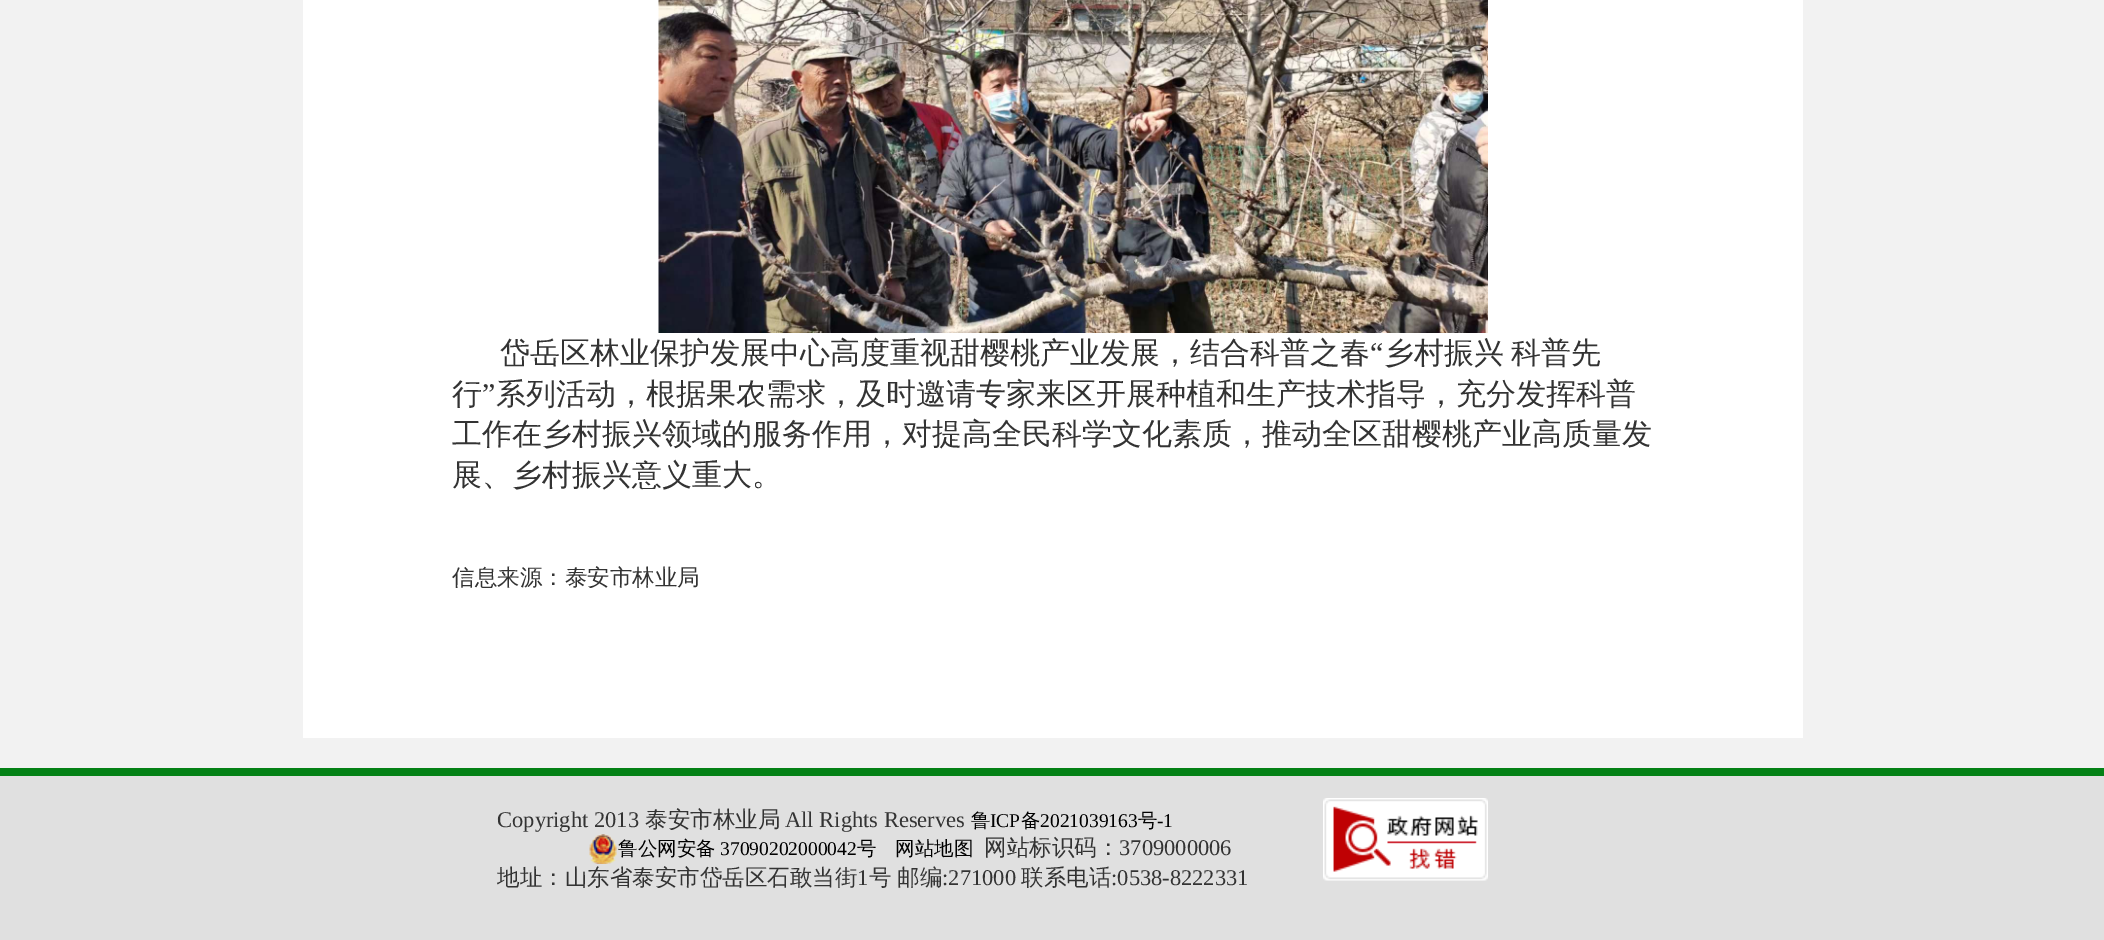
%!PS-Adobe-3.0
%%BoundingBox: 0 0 2104 940
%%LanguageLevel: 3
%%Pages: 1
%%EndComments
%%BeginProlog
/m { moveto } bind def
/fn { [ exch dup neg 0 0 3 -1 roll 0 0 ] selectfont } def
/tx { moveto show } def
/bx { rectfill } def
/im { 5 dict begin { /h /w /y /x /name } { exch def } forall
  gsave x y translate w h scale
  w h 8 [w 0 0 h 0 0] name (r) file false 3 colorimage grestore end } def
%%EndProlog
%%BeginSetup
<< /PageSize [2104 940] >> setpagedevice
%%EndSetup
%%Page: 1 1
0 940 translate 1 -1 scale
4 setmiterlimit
0.949 setgray
0 0 2104 940 bx
1 setgray
303 0 1500 738 bx
(image0.raw) 658 0 830 333 im
/WenQuanYiZenHei-Medium 30 fn
0.2 setgray
(岱岳区林业保护发展中心高度重视甜樱桃产业发展，结合科普之春) 500 363 tx
/LiberationSerif-Regular 30 fn
(“) 1370 363 tx
/WenQuanYiZenHei-Medium 30 fn
(乡村振兴) 1384 363 tx
(科普先) 1511 363 tx
(行) 452 404 tx
/LiberationSerif-Regular 30 fn
(”) 482 404 tx
/WenQuanYiZenHei-Medium 30 fn
(系列活动，根据果农需求，及时邀请专家来区开展种植和生产技术指导，充分发挥科普) 496 404 tx
(工作在乡村振兴领域的服务作用，对提高全民科学文化素质，推动全区甜樱桃产业高质量发) 452 444 tx
(展、乡村振兴意义重大。) 452 485 tx
/WenQuanYiZenHei-Medium 22.5 fn
(信息来源：泰安市林业局) 452 585 tx
0.878 setgray
0 776 2104 164 bx
0.016 0.506 0.086 setrgbcolor
0 768 2104 8 bx
/LiberationSerif-Regular 22.5 fn
0.2 setgray
(Copyright 2013) 497 827 tx
/WenQuanYiZenHei-Medium 22.5 fn
(泰安市林业局) 645 827 tx
/LiberationSerif-Regular 22.5 fn
(All Rights Reserves) 785 827 tx
/WenQuanYiZenHei-Medium 19.5 fn
0 setgray
(鲁) 971 827 tx
/LiberationSerif-Regular 19.5 fn
(ICP) 990 827 tx
/WenQuanYiZenHei-Medium 19.5 fn
(备) 1021 827 tx
/LiberationSerif-Regular 19.5 fn
(2021039163) 1040 827 tx
/WenQuanYiZenHei-Medium 19.5 fn
(号) 1138 827 tx
/LiberationSerif-Regular 19.5 fn
(-1) 1157 827 tx
(image1.raw) 589 834 28 30 im
/WenQuanYiZenHei-Medium 19.5 fn
(鲁公网安备) 618 855 tx
/LiberationSerif-Regular 19.5 fn
(37090202000042) 720 855 tx
/WenQuanYiZenHei-Medium 19.5 fn
(号) 857 855 tx
(网站地图) 895 855 tx
/WenQuanYiZenHei-Medium 22.5 fn
0.2 setgray
(网站标识码：) 984 855 tx
/LiberationSerif-Regular 22.5 fn
(3709000006) 1119 855 tx
/WenQuanYiZenHei-Medium 22.5 fn
(地址：山东省泰安市岱岳区石敢当街) 497 885 tx
/LiberationSerif-Regular 22.5 fn
(1) 857 885 tx
/WenQuanYiZenHei-Medium 22.5 fn
869 885 m -1 0 32 (号 邮编) widthshow
/LiberationSerif-Regular 22.5 fn
(:271000) 942 885 tx
/WenQuanYiZenHei-Medium 22.5 fn
(联系电话) 1021 885 tx
/LiberationSerif-Regular 22.5 fn
(:0538-8222331) 1111 885 tx
(image2.raw) 1323 798 165 83 im
showpage
%%EOF
